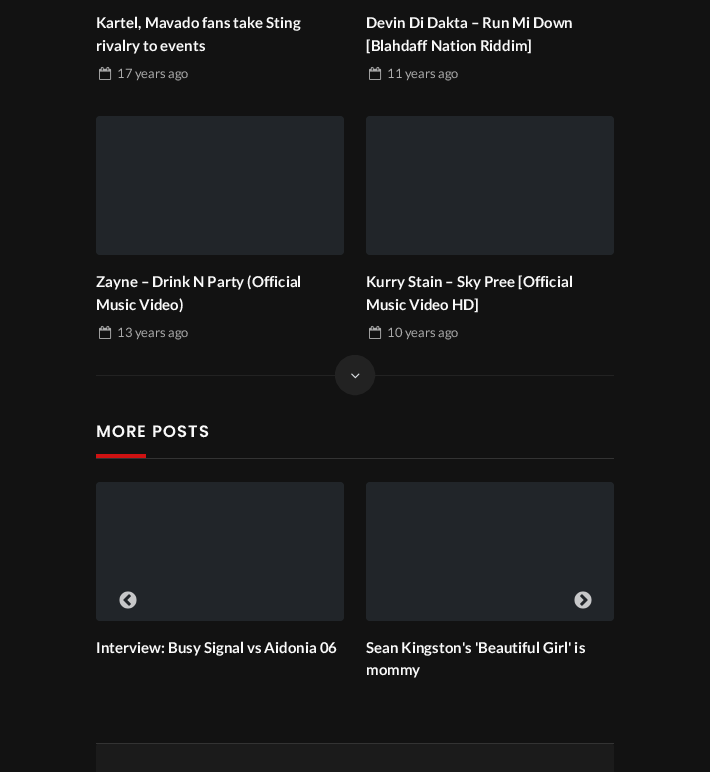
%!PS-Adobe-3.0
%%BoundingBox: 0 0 710 772
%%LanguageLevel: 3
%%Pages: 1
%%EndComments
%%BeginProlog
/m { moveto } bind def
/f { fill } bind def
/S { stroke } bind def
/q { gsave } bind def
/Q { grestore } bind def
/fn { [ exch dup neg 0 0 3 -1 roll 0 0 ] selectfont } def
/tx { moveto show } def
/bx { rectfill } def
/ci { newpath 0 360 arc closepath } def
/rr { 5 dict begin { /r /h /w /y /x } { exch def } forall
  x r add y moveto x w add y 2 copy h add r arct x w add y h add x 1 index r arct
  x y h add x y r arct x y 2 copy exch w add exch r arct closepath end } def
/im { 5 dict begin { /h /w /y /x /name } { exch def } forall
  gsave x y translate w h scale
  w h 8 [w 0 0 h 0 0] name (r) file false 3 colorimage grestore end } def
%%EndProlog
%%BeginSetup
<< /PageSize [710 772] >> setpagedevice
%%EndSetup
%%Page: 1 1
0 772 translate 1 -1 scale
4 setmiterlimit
0.071 setgray
0 0 710 772 bx
/Lato-Bold 15 fn
0.976 setgray
(Kartel, Mavado fans take Sting) 96 28 tx
(rivalry to events) 96 51 tx
(image0.raw) 99 66 13 14 im
/Lato-Regular 13 fn
0.667 setgray
(17 years ago) 117 78 tx
/Lato-Bold 15 fn
0.976 setgray
(Devin Di Dakta – Run Mi Down) 366 28 tx
([Blahdaff Nation Riddim]) 366 51 tx
(image0.raw) 369 66 13 14 im
/Lato-Regular 13 fn
0.667 setgray
(11 years ago) 387 78 tx
0.129 0.145 0.161 setrgbcolor
96 116 248 139 4 rr f
/Lato-Bold 15 fn
0.976 setgray
(Zayne – Drink N Party \(Official) 96 287 tx
(Music Video\)) 96 310 tx
(image0.raw) 99 325 13 14 im
/Lato-Regular 13 fn
0.667 setgray
(13 years ago) 117 337 tx
0.129 0.145 0.161 setrgbcolor
366 116 248 139 4 rr f
/Lato-Bold 15 fn
0.976 setgray
(Kurry Stain – Sky Pree [Official) 366 287 tx
(Music Video HD]) 366 310 tx
(image0.raw) 369 325 13 14 im
/Lato-Regular 13 fn
0.667 setgray
(10 years ago) 387 337 tx
0.133 setgray
96 375 518 1 bx
355 375 19.5 ci q f Q
S
(image1.raw) 351 373 9 6 im
0.2 setgray
96 458 518 1 bx
/Poppins-SemiBold 16.5 fn
0.976 setgray
96 437 m 1 0 (MORE POSTS) ashow
0.808 0.071 0.071 setrgbcolor
96 454 50 4 bx
0.129 0.145 0.161 setrgbcolor
96 482 248 139 4 rr f
(image2.raw) 119 591 18 18 im
366 482 248 139 4 rr f
(image3.raw) 574 591 18 18 im
/Lato-Bold 15 fn
0.976 setgray
(Interview: Busy Signal vs Aidonia 06) 96 653 tx
(Sean Kingston's 'Beautiful Girl' is) 366 653 tx
(mommy) 366 675 tx
0.106 setgray
96 743 518 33 4 rr f
0.2 setgray
96 743 518 1 bx
showpage
%%EOF
